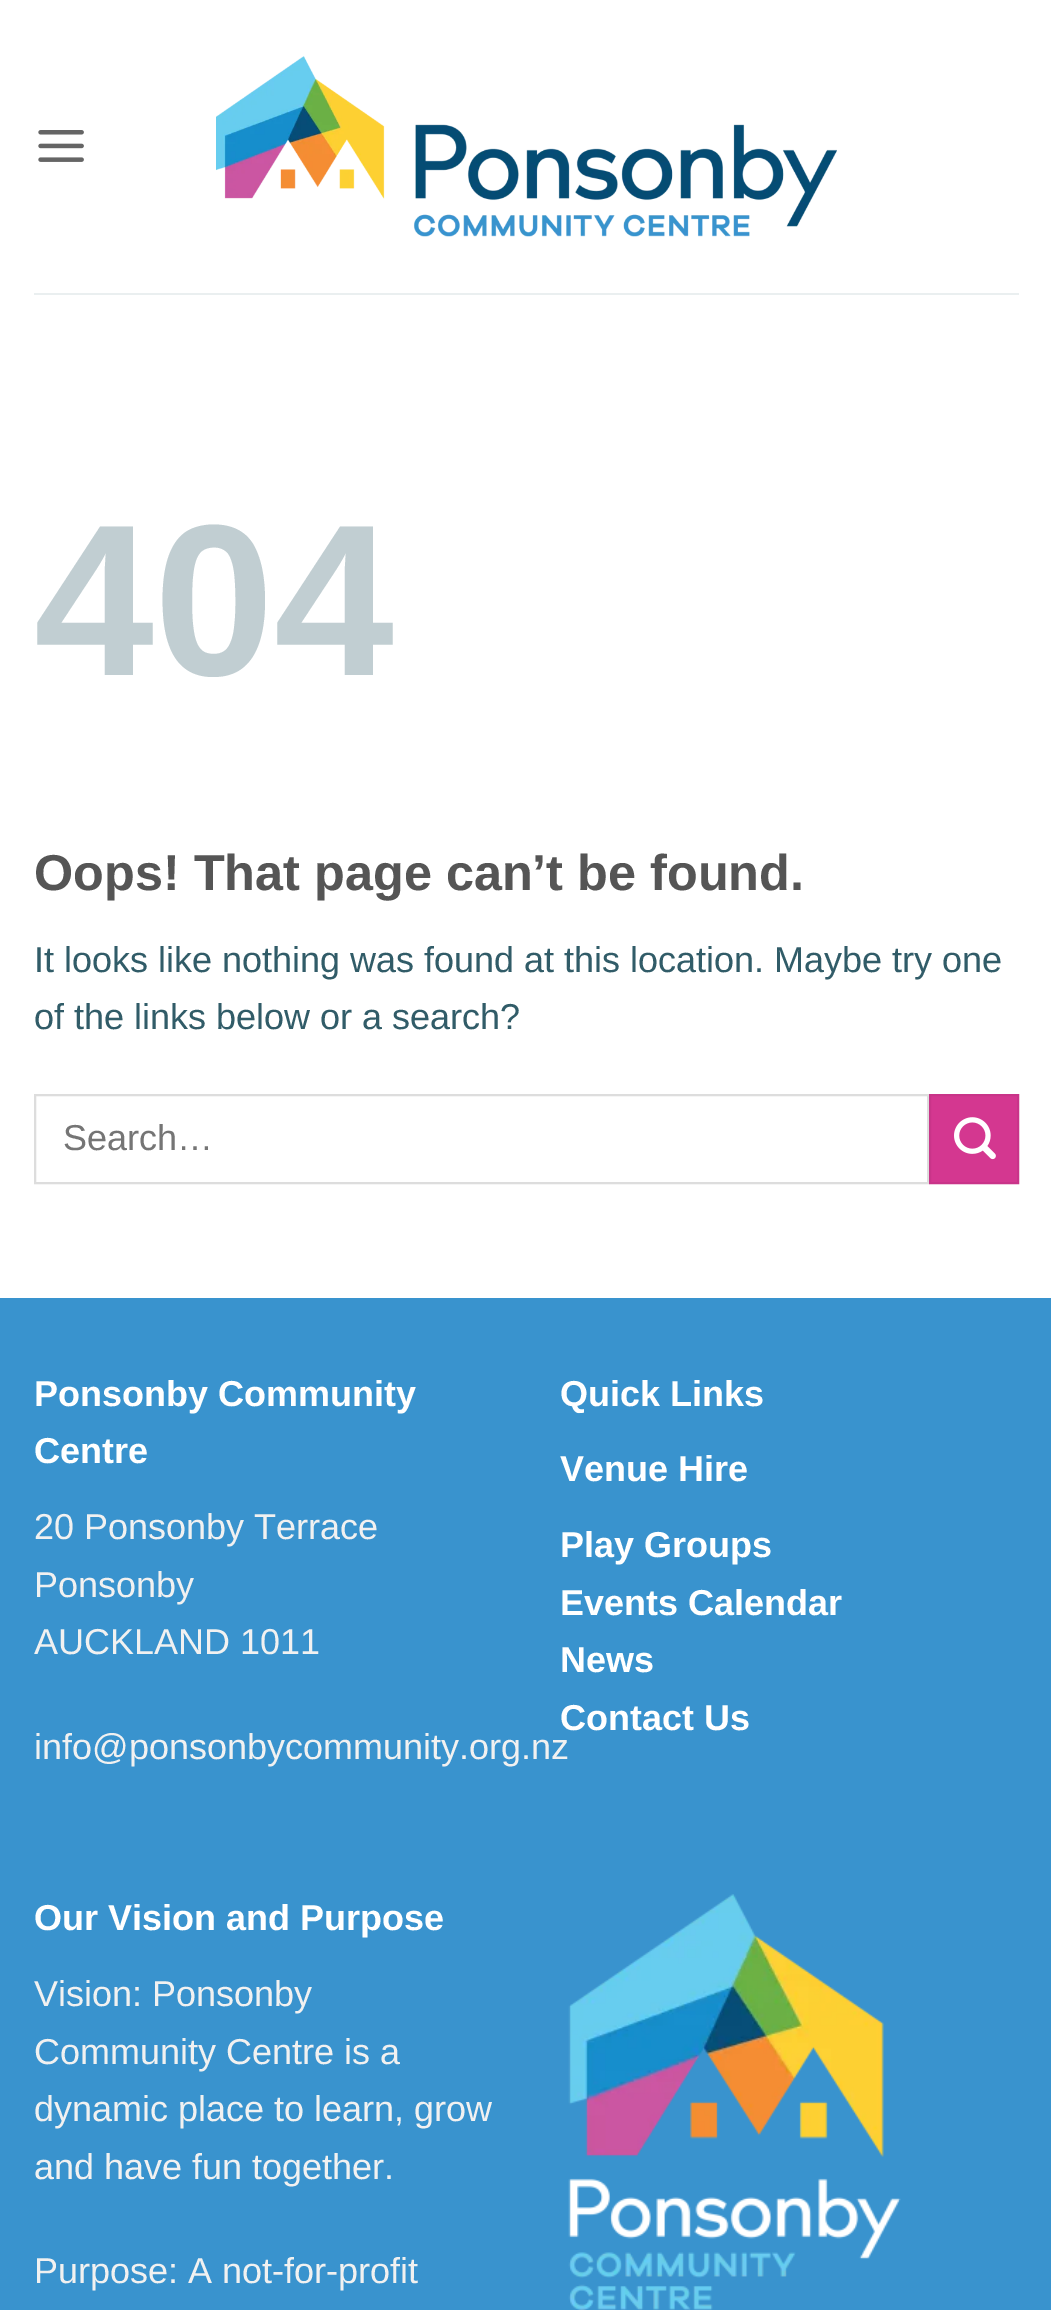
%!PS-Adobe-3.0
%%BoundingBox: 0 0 1051 2310
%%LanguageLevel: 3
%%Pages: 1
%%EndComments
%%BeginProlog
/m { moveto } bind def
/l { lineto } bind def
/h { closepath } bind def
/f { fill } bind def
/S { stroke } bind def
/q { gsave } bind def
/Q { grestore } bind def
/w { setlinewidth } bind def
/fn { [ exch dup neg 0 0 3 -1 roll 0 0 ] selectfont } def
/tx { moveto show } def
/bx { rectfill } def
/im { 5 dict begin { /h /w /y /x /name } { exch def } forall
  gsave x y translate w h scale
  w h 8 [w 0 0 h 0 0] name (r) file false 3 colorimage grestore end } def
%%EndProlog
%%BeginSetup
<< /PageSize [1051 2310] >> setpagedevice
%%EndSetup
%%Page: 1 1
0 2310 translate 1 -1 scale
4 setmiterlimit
1 setgray
0 0 1051 2310 bx
(image0.raw) 38 130 46 32 im
(image1.raw) 216 56 621 181 im
0.918 0.937 0.941 setrgbcolor
34 293 985 2 bx
/LiberationSans-Bold 216 fn
0.757 0.808 0.824 setrgbcolor
(404) 34 675 tx
/LiberationSans-Bold 50.4 fn
0.333 setgray
(Oops! That page can’t be found.) 34 890 tx
/LiberationSans-Regular 36 fn
0.192 0.361 0.408 setrgbcolor
(It looks like nothing was found at this location. Maybe try one) 34 972 tx
(of the links below or a search?) 34 1029 tx
0.867 setgray
2 w
35 1095 893 88 rectstroke
0.459 setgray
(Search…) 63 1150 tx
0.831 0.216 0.565 setrgbcolor
930 1095 m 1018 1095 l 1018 1183 l 930 1183 l h q f Q
0.788 0.204 0.537 setrgbcolor
S
(image2.raw) 954 1117 42 43 im
0.224 0.576 0.808 setrgbcolor
0 1298 1051 1012 bx
/LiberationSans-Bold 36 fn
1 setgray
(Ponsonby Community) 34 1406 tx
(Centre) 34 1463 tx
/LiberationSans-Regular 36 fn
0.945 setgray
(20 Ponsonby Terrace) 34 1539 tx
(Ponsonby) 34 1597 tx
(AUCKLAND 1011) 34 1654 tx
(info@ponsonbycommunity.org.nz) 34 1759 tx
/LiberationSans-Bold 36 fn
1 setgray
(Quick Links) 560 1406 tx
(Venue Hire) 560 1481 tx
(Play Groups) 560 1557 tx
(Events Calendar) 560 1615 tx
(News) 560 1672 tx
(Contact Us) 560 1730 tx
(Our Vision and Purpose) 34 1930 tx
/LiberationSans-Regular 36 fn
0.945 setgray
(Vision: Ponsonby) 34 2006 tx
(Community Centre is a) 34 2064 tx
(dynamic place to learn, grow) 34 2121 tx
(and have fun together.) 34 2179 tx
(Purpose: A not-for-profit) 34 2283 tx
(image3.raw) 568 1894 333 416 im
showpage
%%EOF
